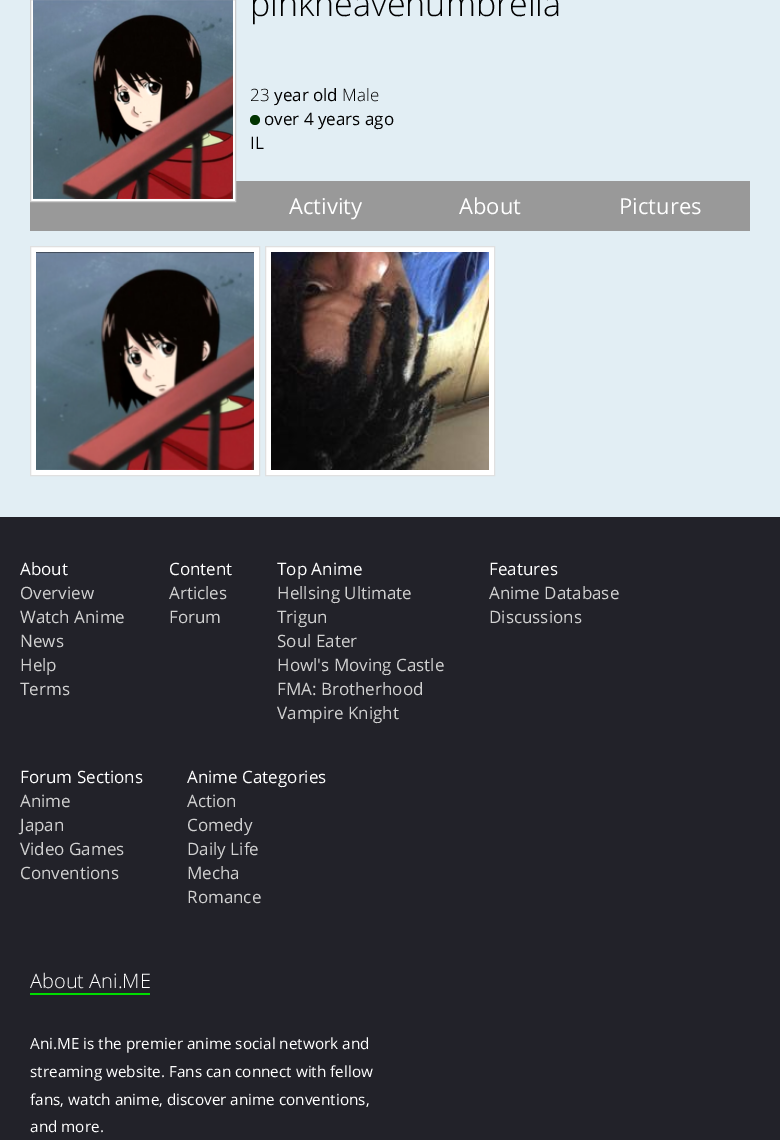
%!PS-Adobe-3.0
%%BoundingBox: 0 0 780 1140
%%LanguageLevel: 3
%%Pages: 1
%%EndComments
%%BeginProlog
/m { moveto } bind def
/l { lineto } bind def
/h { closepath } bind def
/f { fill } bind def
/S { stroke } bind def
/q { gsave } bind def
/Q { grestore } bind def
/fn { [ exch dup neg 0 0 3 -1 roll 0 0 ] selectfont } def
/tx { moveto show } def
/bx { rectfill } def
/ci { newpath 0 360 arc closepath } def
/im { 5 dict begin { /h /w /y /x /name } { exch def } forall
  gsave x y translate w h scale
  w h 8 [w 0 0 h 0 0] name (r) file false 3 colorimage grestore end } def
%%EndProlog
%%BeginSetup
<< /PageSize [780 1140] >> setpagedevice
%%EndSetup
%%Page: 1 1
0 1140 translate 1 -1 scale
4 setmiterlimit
0.886 0.933 0.957 setrgbcolor
0 0 780 1140 bx
0.6 setgray
30 181 720 50 bx
1 setgray
30.5 -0.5 m 235.5 -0.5 l 235.5 201.5 l 30.5 201.5 l h q f Q
0.8 setgray
S
(image0.raw) 33 0 200 199 im
/OpenSans-Light 34 fn
0 setgray
(pinkheavenumbrella) 250 16 tx
/OpenSans-Light 17 fn
(23) 250 101 tx
/OpenSans-Regular 17 fn
(year old) 274 101 tx
/OpenSans-Light 17 fn
(Male) 342 101 tx
0 0.2 0 setrgbcolor
255 120 5 ci f
/OpenSans-Regular 17 fn
0 setgray
(over 4 years ago) 264 125 tx
(IL) 250 149 tx
/OpenSans-Regular 22 fn
1 setgray
(Activity) 289 214 tx
(About) 459 214 tx
(Pictures) 619 214 tx
30.5 246.5 m 259.5 246.5 l 259.5 475.5 l 30.5 475.5 l h q f Q
0.878 setgray
S
(image1.raw) 36 252 218 218 im
1 setgray
265.5 246.5 m 494.5 246.5 l 494.5 475.5 l 265.5 475.5 l h q f Q
0.878 setgray
S
(image2.raw) 271 252 218 218 im
0.133 0.133 0.161 setrgbcolor
0 517 780 623 bx
/OpenSans-Regular 17 fn
1 setgray
(About) 20 575 tx
0.82 setgray
(Overview) 20 599 tx
(Watch Anime) 20 623 tx
(News) 20 647 tx
(Help) 20 671 tx
(Terms) 20 695 tx
1 setgray
(Content) 169 575 tx
0.82 setgray
(Articles) 169 599 tx
(Forum) 169 623 tx
1 setgray
(Top Anime) 277 575 tx
0.82 setgray
(Hellsing Ultimate) 277 599 tx
(Trigun) 277 623 tx
(Soul Eater) 277 647 tx
(Howl's Moving Castle) 277 671 tx
(FMA: Brotherhood) 277 695 tx
(Vampire Knight) 277 719 tx
1 setgray
(Features) 489 575 tx
0.82 setgray
(Anime Database) 489 599 tx
(Discussions) 489 623 tx
1 setgray
(Forum Sections) 20 783 tx
0.82 setgray
(Anime) 20 807 tx
(Japan) 20 831 tx
(Video Games) 20 855 tx
(Conventions) 20 879 tx
1 setgray
(Anime Categories) 187 783 tx
0.82 setgray
(Action) 187 807 tx
(Comedy) 187 831 tx
(Daily Life) 187 855 tx
(Mecha) 187 879 tx
(Romance) 187 903 tx
0 0.867 0 setrgbcolor
30 993 120 2 bx
/OpenSans-Light 20 fn
1 setgray
(About Ani.ME) 30 988 tx
/OpenSans-Regular 15.3 fn
(Ani.ME is the premier anime social network and) 30 1049 tx
(streaming website. Fans can connect with fellow) 30 1077 tx
(fans, watch anime, discover anime conventions,) 30 1105 tx
(and more.) 30 1132 tx
showpage
%%EOF
